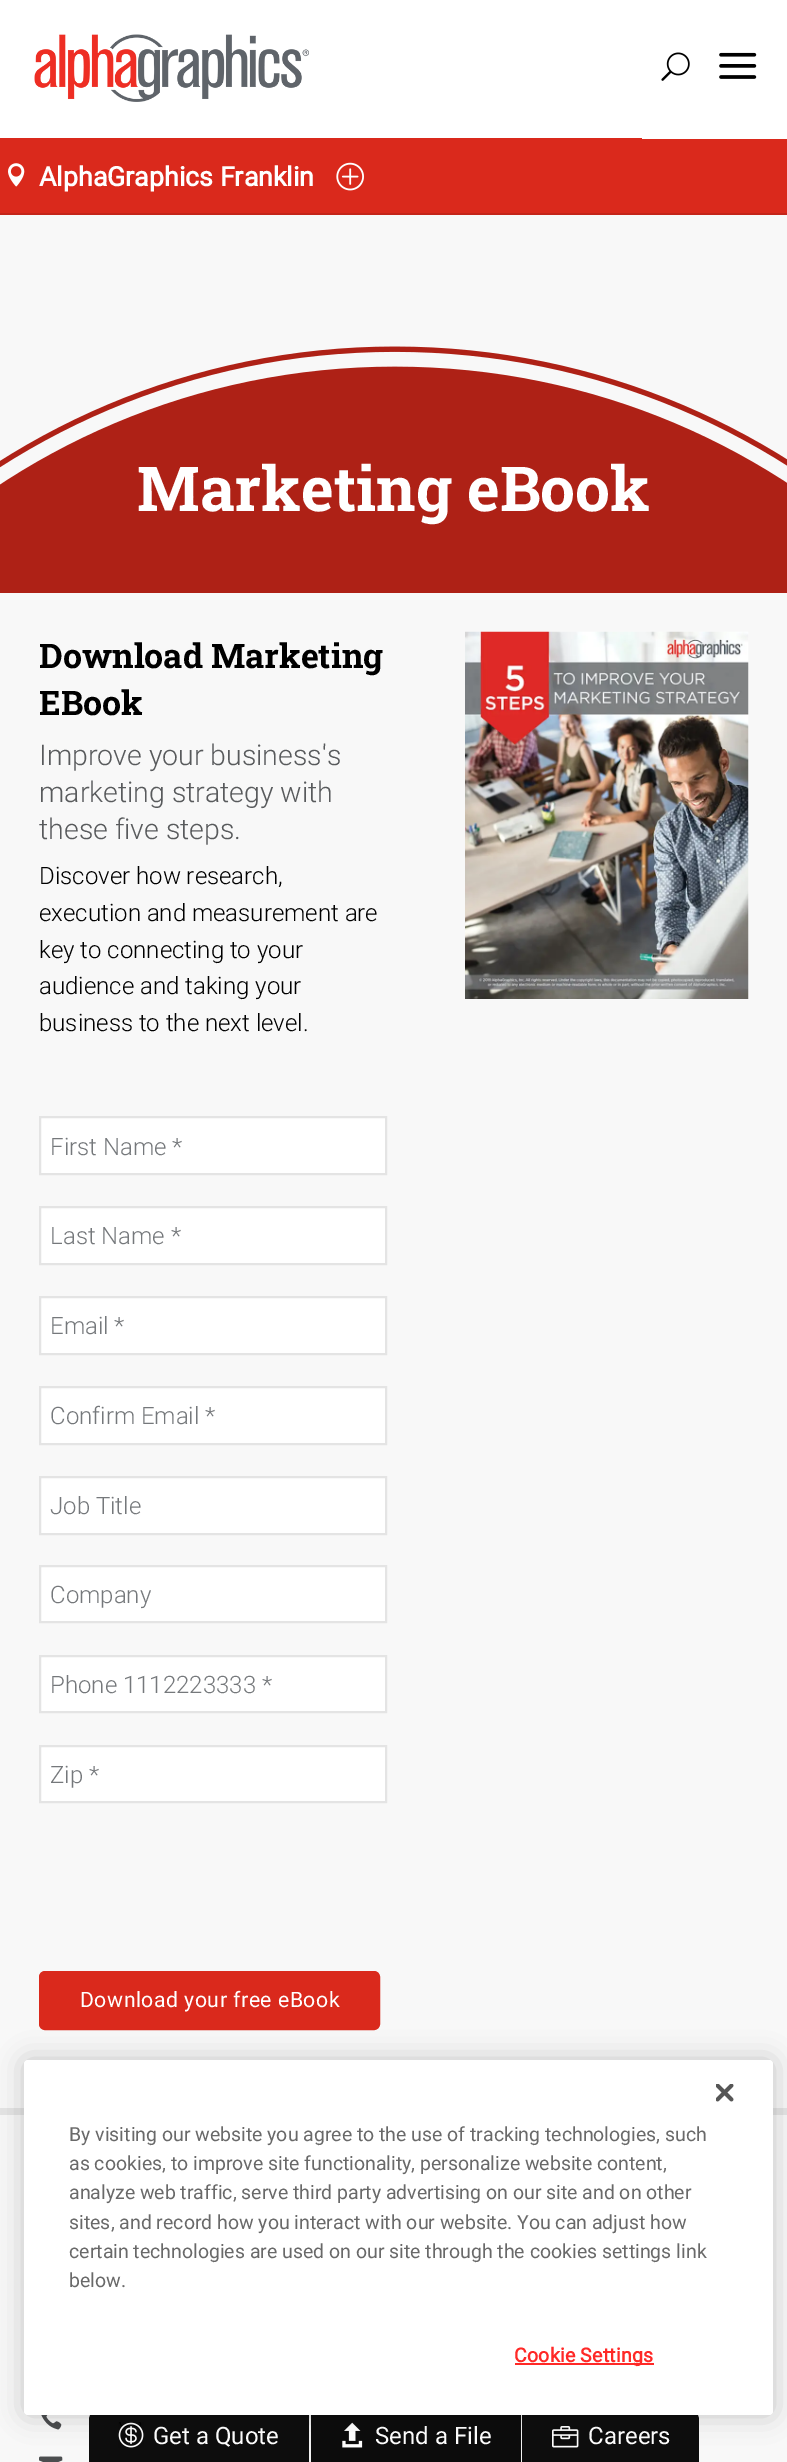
%!PS-Adobe-3.0
%%BoundingBox: 0 0 787 2462
%%LanguageLevel: 3
%%Pages: 1
%%EndComments
%%BeginProlog
/m { moveto } bind def
/l { lineto } bind def
/c { curveto } bind def
/h { closepath } bind def
/f { fill } bind def
/S { stroke } bind def
/q { gsave } bind def
/Q { grestore } bind def
/w { setlinewidth } bind def
/fn { [ exch dup neg 0 0 3 -1 roll 0 0 ] selectfont } def
/tx { moveto show } def
/bx { rectfill } def
/al { dup .setfillconstantalpha .setstrokeconstantalpha } def
/rr { 5 dict begin { /r /h /w /y /x } { exch def } forall
  x r add y moveto x w add y 2 copy h add r arct x w add y h add x 1 index r arct
  x y h add x y r arct x y 2 copy exch w add exch r arct closepath end } def
/sh { 12 dict begin { /a /b /q /h /w /y /x } { exch def } forall gsave /was 0 def
  9 -2 -9 { dup b mul 4 div /e exch def 1 sub .425 mul 2.718 exch exp 1 add a .99 .min exch div /now exch def
    1 1 now sub 1 was sub div sub al /was now def
    w h .min e 2 mul add 0 gt { x e sub y e sub w e 2 mul add h e 2 mul add
      q e add b .6 mul add w h .min 2 div e add .min 0 .max rr fill } if } for grestore end } def
/im { 5 dict begin { /h /w /y /x /name } { exch def } forall
  gsave x y translate w h scale
  w h 8 [w 0 0 h 0 0] name (r) file false 3 colorimage grestore end } def
%%EndProlog
%%BeginSetup
<< /PageSize [787 2462] /PageUsesTransparency true >> setpagedevice
%%EndSetup
%%Page: 1 1
0 .pushpdf14devicefilter
0 2462 translate 1 -1 scale
4 setmiterlimit
1 setgray
0 0 787 2462 bx
0.855 0.161 0.11 setrgbcolor
0 138 787 75 bx
(image0.raw) 8 163 17 24 im
/Roboto-Bold 26.75 fn
1 setgray
(AlphaGraphics Franklin) 39 186 tx
(image1.raw) 336 162 28 29 im
(image2.raw) 34 34 275 68 im
642 138 145 1 bx
(image3.raw) 661 52 29 29 im
(image4.raw) 719 52 38 27 im
0.973 setgray
0 2115 787 347 bx
0.95 al
0 setgray
101 2408 m 311 2408 l 311 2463 l 89 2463 l 89 2420 l 89 2413.5 94.5 2408 101 2408 c h f
1 al
0.949 setgray
309 2408 2 54 bx
(image5.raw) 118 2422 26 26 im
/Roboto-Regular 24 fn
1 setgray
(Get a Quote) 153 2444 tx
0.047 setgray
311 2415 210 47 bx
0.949 setgray
521 2408 2 54 bx
(image6.raw) 342 2422 21 26 im
1 setgray
(Send a File) 375 2444 tx
0.95 al
0 setgray
522 2408 m 687 2408 l 693.5 2408 699 2413.5 699 2420 c 699 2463 l 522 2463 l h f
1 al
(image7.raw) 552 2426 27 22 im
1 setgray
(Careers) 588 2444 tx
0.769 0.145 0.098 setrgbcolor
0 213 787 2 bx
0.973 setgray
0 215 787 270 bx
(image8.raw) 0 346 787 247 im
/RobotoSlab-Bold 62 fn
1 setgray
(Marketing eBook) 137 511 tx
0.973 setgray
0 593 787 1515 bx
/RobotoSlab-Bold 33.9 fn
0 setgray
(Download Marketing) 39 668 tx
(EBook) 39 715 tx
/Roboto-Light 28.5 fn
0.345 0.353 0.361 setrgbcolor
(Improve your business's) 39 765 tx
(marketing strategy with) 39 802 tx
(these five steps.) 39 839 tx
/Roboto-Light 24 fn
0 setgray
(Discover how research,) 39 884 tx
(execution and measurement are) 39 921 tx
(key to connecting to your) 39 958 tx
(audience and taking your) 39 994 tx
(business to the next level.) 39 1031 tx
1 setgray
40 1117 m 386 1117 l 386 1174 l 40 1174 l h q f Q
0.894 setgray
2 w
S
0.459 0.471 0.482 setrgbcolor
(First Name *) 50 1155 tx
1 setgray
40 1207 m 386 1207 l 386 1264 l 40 1264 l h q f Q
0.894 setgray
S
0.459 0.471 0.482 setrgbcolor
(Last Name *) 50 1244 tx
1 setgray
40 1297 m 386 1297 l 386 1354 l 40 1354 l h q f Q
0.894 setgray
S
0.459 0.471 0.482 setrgbcolor
(Email *) 50 1334 tx
1 setgray
40 1387 m 386 1387 l 386 1444 l 40 1444 l h q f Q
0.894 setgray
S
0.459 0.471 0.482 setrgbcolor
(Confirm Email *) 50 1424 tx
1 setgray
40 1477 m 386 1477 l 386 1534 l 40 1534 l h q f Q
0.894 setgray
S
0.459 0.471 0.482 setrgbcolor
(Job Title) 50 1514 tx
1 setgray
40 1566 m 386 1566 l 386 1622 l 40 1622 l h q f Q
0.894 setgray
S
0.459 0.471 0.482 setrgbcolor
(Company) 50 1603 tx
1 setgray
40 1656 m 386 1656 l 386 1712 l 40 1712 l h q f Q
0.894 setgray
S
0.459 0.471 0.482 setrgbcolor
(Phone 1112223333 *) 50 1693 tx
1 setgray
40 1746 m 386 1746 l 386 1802 l 40 1802 l h q f Q
0.894 setgray
S
0.459 0.471 0.482 setrgbcolor
(Zip *) 50 1783 tx
0.855 0.161 0.11 setrgbcolor
40 1972 339 57 5 rr q f Q
S
/Roboto-Regular 21.25 fn
1 setgray
80 2007 m 0.5 0 (Download your free eBook) ashow
(image9.raw) 465 631 284 368 im
0.898 setgray
0 2108 787 7 bx
(image10.raw) 41 2415 21 15 im
(image11.raw) 39 2456 24 6 im
0 setgray
24 2060 749 355 4 13.5 0.2 sh
1 setgray
24 2060 749 355 4 rr f
(image12.raw) 716 2084 18 18 im
/Roboto-Regular 19.5 fn
0.412 setgray
(By visiting our website you agree to the use of tracking technologies, such) 69 2141 tx
(as cookies, to improve site functionality, personalize website content,) 69 2170 tx
(analyze web traffic, serve third party advertising on our site and on other) 69 2199 tx
(sites, and record how you interact with our website. You can adjust how) 69 2229 tx
(certain technologies are used on our site through the cookies settings link) 69 2258 tx
(below.) 69 2287 tx
1 0.161 0.153 setrgbcolor
515 2363 139 2 bx
/Roboto-Bold 19.5 fn
514 2362 m 0.25 0 (Cookie Settings) ashow
.poppdf14devicefilter showpage
%%EOF
